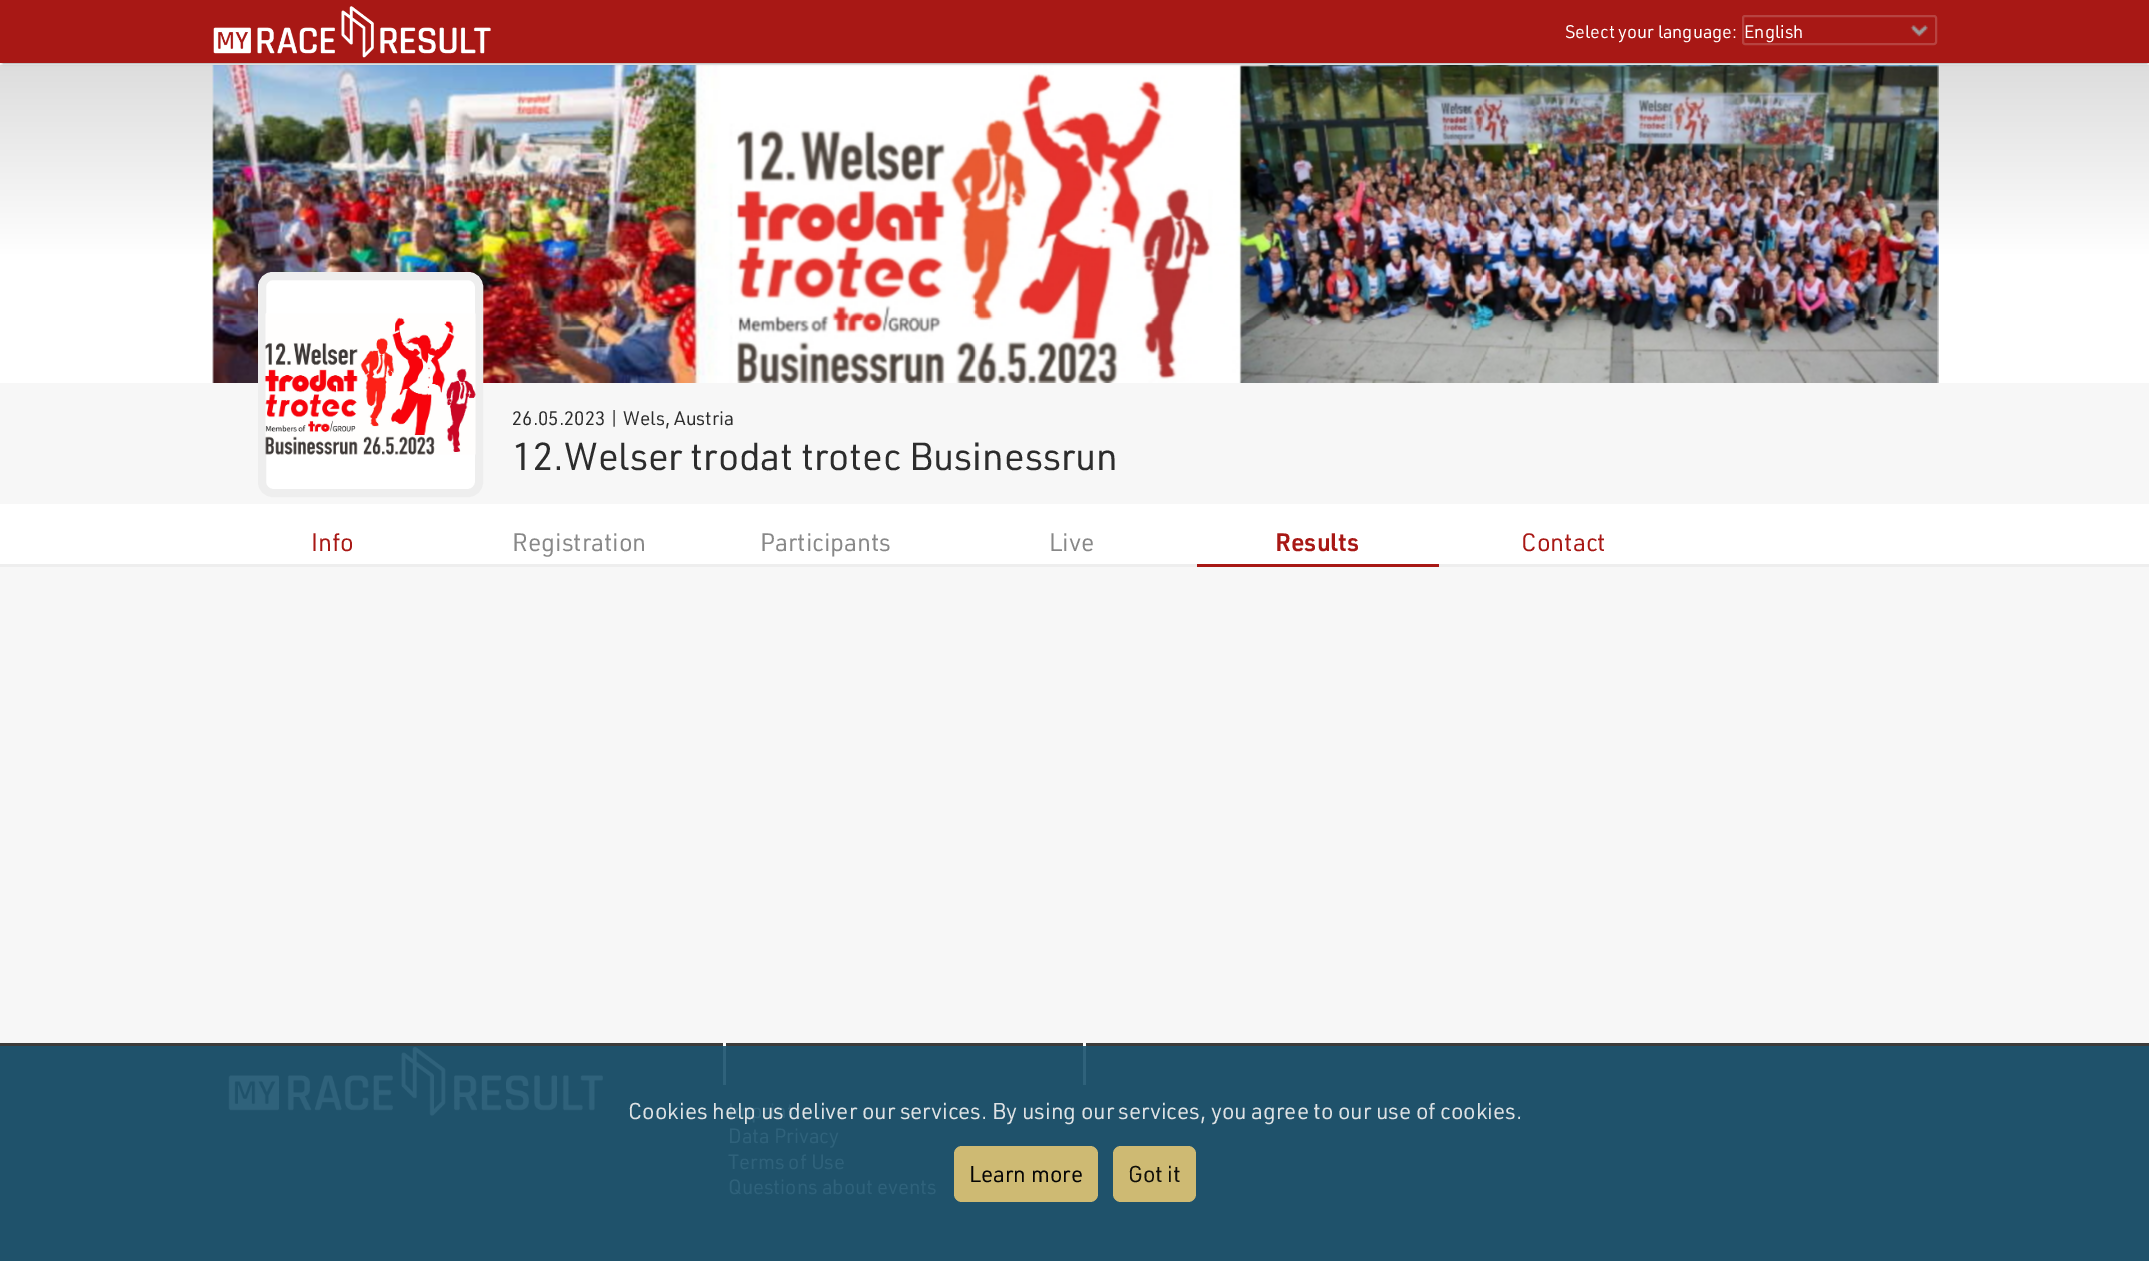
%!PS-Adobe-3.0
%%BoundingBox: 0 0 2149 1261
%%LanguageLevel: 3
%%Pages: 1
%%EndComments
%%BeginProlog
/m { moveto } bind def
/l { lineto } bind def
/h { closepath } bind def
/f { fill } bind def
/S { stroke } bind def
/q { gsave } bind def
/Q { grestore } bind def
/w { setlinewidth } bind def
/fn { [ exch dup neg 0 0 3 -1 roll 0 0 ] selectfont } def
/tx { moveto show } def
/bx { rectfill } def
/al { dup .setfillconstantalpha .setstrokeconstantalpha } def
/rr { 5 dict begin { /r /h /w /y /x } { exch def } forall
  x r add y moveto x w add y 2 copy h add r arct x w add y h add x 1 index r arct
  x y h add x y r arct x y 2 copy exch w add exch r arct closepath end } def
/sh { 12 dict begin { /a /b /q /h /w /y /x } { exch def } forall gsave /was 0 def
  9 -2 -9 { dup b mul 4 div /e exch def 1 sub .425 mul 2.718 exch exp 1 add a .99 .min exch div /now exch def
    1 1 now sub 1 was sub div sub al /was now def
    w h .min e 2 mul add 0 gt { x e sub y e sub w e 2 mul add h e 2 mul add
      q e add b .6 mul add w h .min 2 div e add .min 0 .max rr fill } if } for grestore end } def
/im { 5 dict begin { /h /w /y /x /name } { exch def } forall
  gsave x y translate w h scale
  w h 8 [w 0 0 h 0 0] name (r) file false 3 colorimage grestore end } def
%%EndProlog
%%BeginSetup
<< /PageSize [2149 1261] /PageUsesTransparency true >> setpagedevice
%%EndSetup
%%Page: 1 1
0 .pushpdf14devicefilter
0 1261 translate 1 -1 scale
4 setmiterlimit
0.969 setgray
0 0 2149 1261 bx
q 0 65 m 2149 65 l 2149 383 l 0 383 l h clip newpath
<< /ShadingType 2 /ColorSpace /DeviceRGB /Coords [1075 383 1075 65] /Extend [true true] /Function << /FunctionType 3 /Domain [0 1] /Functions [<< /FunctionType 2 /Domain [0 1] /C0 [1 1 1] /C1 [1 1 1] /N 1 >> << /FunctionType 2 /Domain [0 1] /C0 [1 1 1] /C1 [0.867 0.867 0.867] /N 1 >>] /Bounds [0.4] /Encode [0 1 0 1] >> >> shfill Q
(image2.raw) 212 65 1727 318 im
0 setgray
3 6 2144 57 0 1.5 0.52 sh
0.659 0.094 0.082 setrgbcolor
0 0 2149 63 bx
(image0.raw) 213 6 278 52 im
/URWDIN-Regular 18 fn
1 setgray
(Select your language:) 1565 38 tx
(image1.raw) 1910 25 18 12 im
0.718 0.263 0.251 setrgbcolor
2 w
1743 16 193 28 2 rr S
1 setgray
(English) 1744 38 tx
262 276 217 217 11 rr q f Q
0.933 setgray
8 w
S
(image3.raw) 265 313 211 142 im
/URWDIN-Regular 19.1 fn
0.173 setgray
(26.05.2023 | Wels, Austria) 512 425 tx
/URWDIN-Regular 38.25 fn
(12.Welser trodat trotec Businessrun) 512 470 tx
1 setgray
0 504 2149 60 bx
0.933 setgray
0 564 2149 3 bx
/URWDIN-Regular 24.75 fn
0.659 0.094 0.082 setrgbcolor
(Info) 311 551 tx
0.533 setgray
(Registration) 512 551 tx
(Participants) 760 551 tx
(Live) 1049 551 tx
0.659 0.094 0.082 setrgbcolor
1197 564 242 3 bx
/URWDIN-SemiBold 24.75 fn
(Results) 1275 551 tx
/URWDIN-Regular 24.75 fn
(Contact) 1521 551 tx
0.122 0.322 0.42 setrgbcolor
0 1046 2149 215 bx
/URWDIN-Regular 20.25 fn
0.184 0.384 0.482 setrgbcolor
(Imprint) 728 1118 tx
/URWDIN-Regular 22.5 fn
0.871 0.886 0.894 setrgbcolor
(Cookies help us deliver our services. By using our services, you agree to our use of cookies.) 628 1119 tx
0.92 al
0.867 0.765 0.455 setrgbcolor
954 1146 144 56 8 rr f
1 al
0.02 setgray
(Learn more) 969 1182 tx
0.92 al
0.867 0.765 0.455 setrgbcolor
1113 1146 83 56 8 rr f
1 al
0.063 0.059 0.035 setrgbcolor
(Got it) 1128 1182 tx
0.235 0.235 0.231 setrgbcolor
0 1043 2149 3 bx
(image4.raw) 228 1046 375 70 im
1 setgray
1083 1043 3 3 bx
0.184 0.384 0.482 setrgbcolor
1083 1046 3 39 bx
1 setgray
723 1043 3 3 bx
0.184 0.384 0.482 setrgbcolor
723 1046 3 39 bx
/URWDIN-Regular 20.25 fn
(Data Privacy) 728 1143 tx
(Terms of Use) 728 1169 tx
(Questions about events) 728 1194 tx
.poppdf14devicefilter showpage
%%EOF
